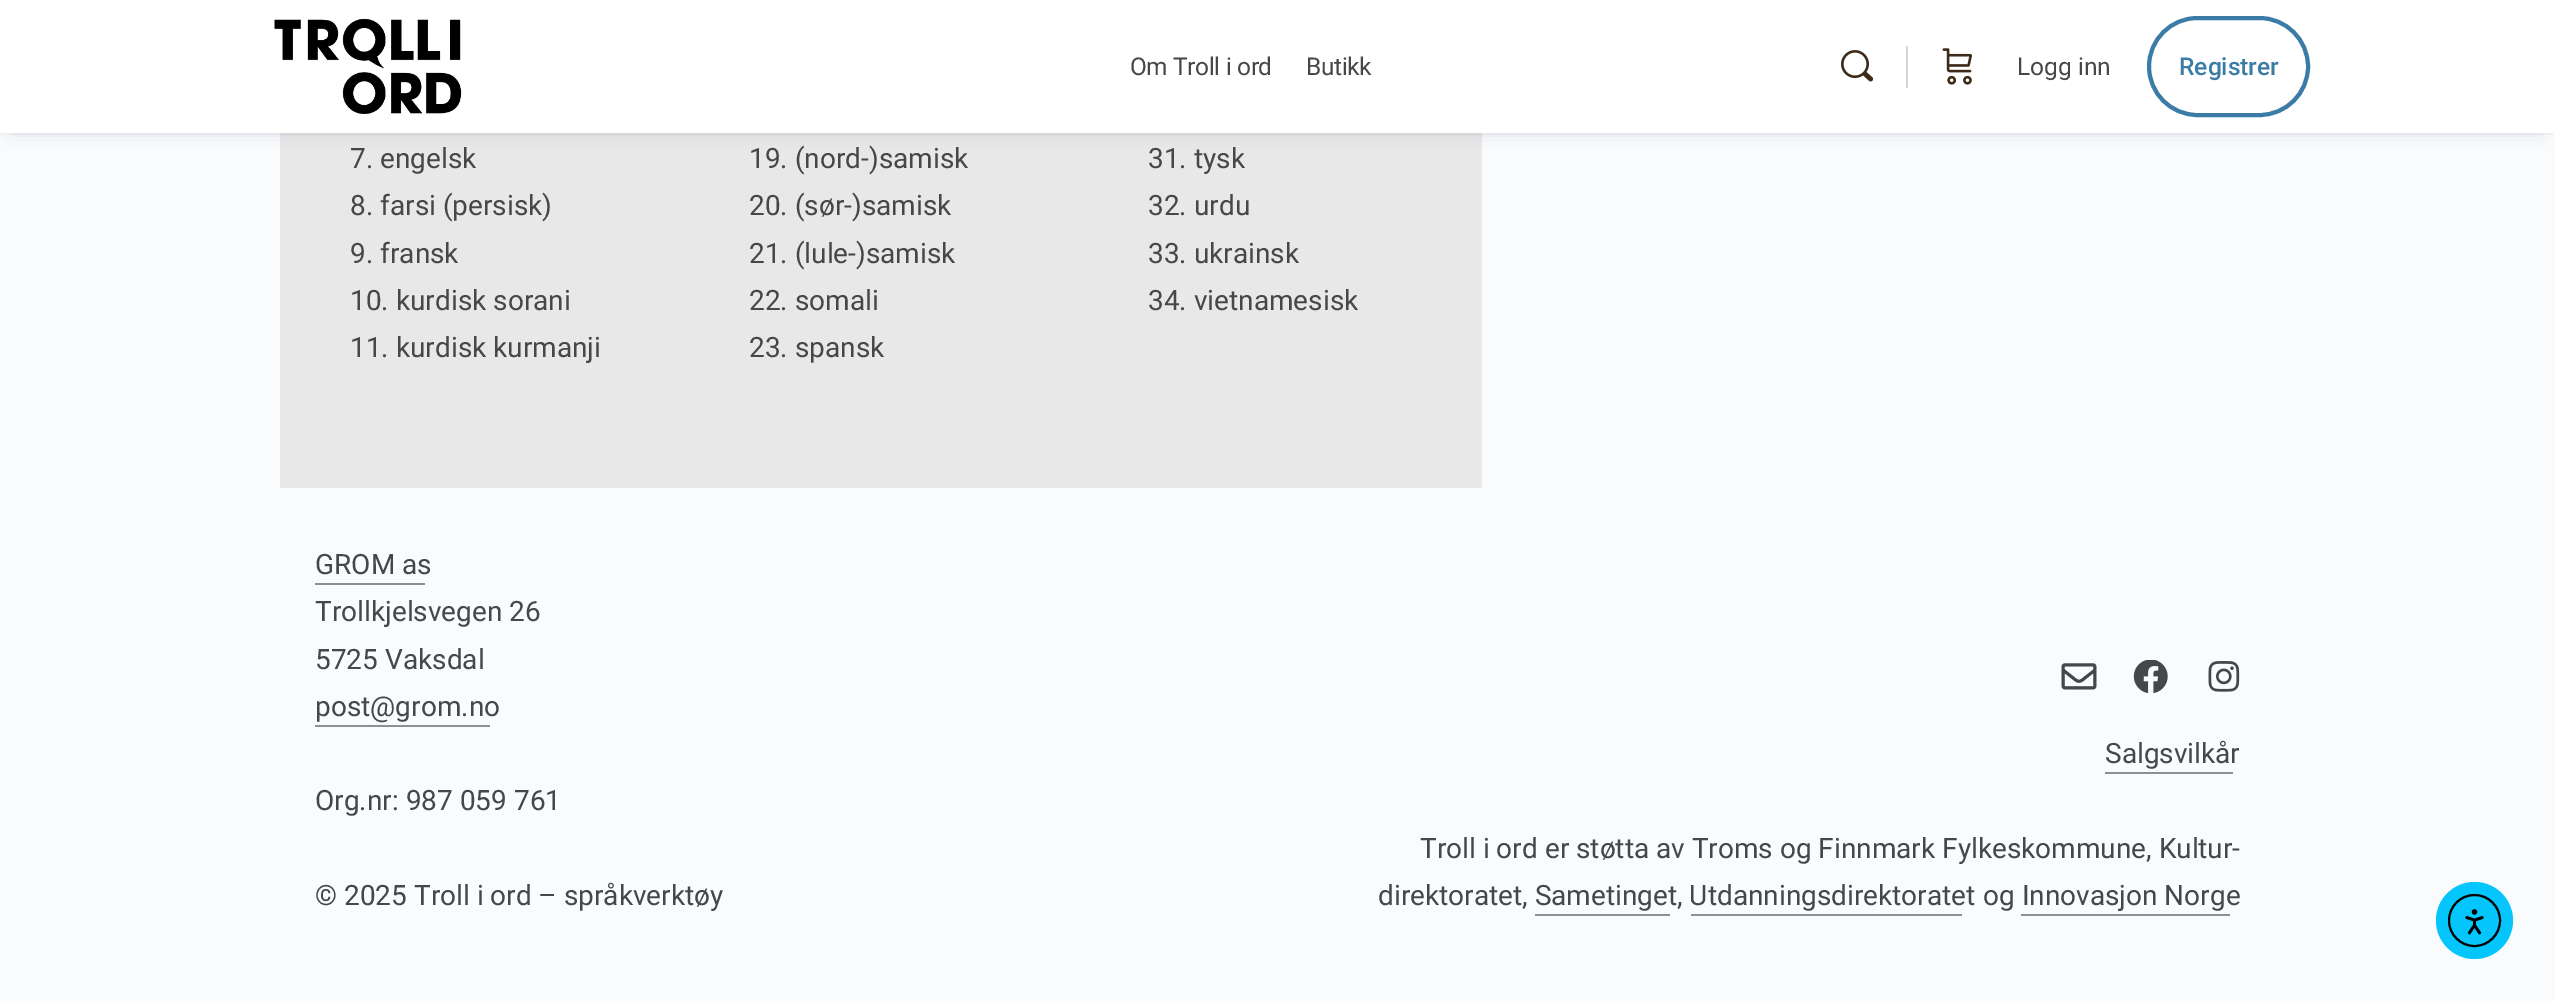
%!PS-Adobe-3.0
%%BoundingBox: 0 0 2555 1001
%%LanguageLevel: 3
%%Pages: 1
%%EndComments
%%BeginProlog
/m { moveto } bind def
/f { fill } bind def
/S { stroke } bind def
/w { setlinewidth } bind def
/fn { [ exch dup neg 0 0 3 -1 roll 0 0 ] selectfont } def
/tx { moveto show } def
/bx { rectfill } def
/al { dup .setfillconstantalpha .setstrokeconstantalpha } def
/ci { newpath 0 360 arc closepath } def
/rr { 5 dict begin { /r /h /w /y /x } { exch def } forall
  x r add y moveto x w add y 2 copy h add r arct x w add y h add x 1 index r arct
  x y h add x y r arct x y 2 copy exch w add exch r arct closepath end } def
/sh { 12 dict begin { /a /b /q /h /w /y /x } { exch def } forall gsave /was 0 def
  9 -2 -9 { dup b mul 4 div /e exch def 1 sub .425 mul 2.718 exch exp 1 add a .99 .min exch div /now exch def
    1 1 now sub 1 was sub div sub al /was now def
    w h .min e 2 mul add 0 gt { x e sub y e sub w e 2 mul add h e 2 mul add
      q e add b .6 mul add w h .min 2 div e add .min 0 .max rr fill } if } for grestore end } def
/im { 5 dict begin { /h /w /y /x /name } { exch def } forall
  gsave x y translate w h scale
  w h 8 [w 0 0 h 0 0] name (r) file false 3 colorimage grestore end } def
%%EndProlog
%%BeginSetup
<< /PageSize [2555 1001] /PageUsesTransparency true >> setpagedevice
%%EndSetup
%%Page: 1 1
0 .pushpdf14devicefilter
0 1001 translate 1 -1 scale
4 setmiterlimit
0.98 0.984 0.992 setrgbcolor
0 0 2555 1001 bx
0.91 setgray
280 133 1202 355 bx
0.255 0.278 0.424 setrgbcolor
12 21 2531 109 0 9 0.25 sh
0.05 al
0.545 0.553 0.616 setrgbcolor
0 133 2555 2 bx
1 al
1 setgray
0 0 2555 133 bx
(image0.raw) 274 18 188 96 im
/Roboto-Regular 24.5 fn
0.275 0.278 0.286 setrgbcolor
1130 75 m -0.4 0 (Om Troll i ord) ashow
1306 75 m -0.4 0 (Butikk) ashow
(image1.raw) 1841 50 33 32 im
0.847 0.835 0.82 setrgbcolor
1906 46 2 42 bx
(image2.raw) 1942 48 30 37 im
0.275 0.278 0.286 setrgbcolor
(Logg inn) 2017 75 tx
0.227 0.486 0.647 setrgbcolor
4 w
2149 18 159 97 48.5 rr S
/Roboto-Medium 24.5 fn
(Registrer) 2179 75 tx
/Roboto-Regular 28 fn
0.275 0.278 0.286 setrgbcolor
(7. engelsk) 350 168 tx
(8. farsi \(persisk\)) 350 215 tx
(9. fransk) 350 263 tx
(10. kurdisk sorani) 350 310 tx
(11. kurdisk kurmanji) 350 357 tx
(19. \(nord-\)samisk) 749 168 tx
(20. \(sør-\)samisk) 749 215 tx
(21. \(lule-\)samisk) 749 263 tx
(22. somali) 749 310 tx
(23. spansk) 749 357 tx
(31. tysk) 1148 168 tx
(32. urdu) 1148 215 tx
(33. ukrainsk) 1148 263 tx
(34. vietnamesisk) 1148 310 tx
(GROM as) 315 574 tx
0.557 0.561 0.569 setrgbcolor
315 583 110 2 bx
0.275 0.278 0.286 setrgbcolor
(Trollkjelsvegen 26) 315 621 tx
(5725 Vaksdal) 315 669 tx
(post@grom.no) 315 716 tx
0.557 0.561 0.569 setrgbcolor
315 725 175 2 bx
0.275 0.278 0.286 setrgbcolor
(Org.nr: 987 059 761) 315 810 tx
(© 2025 Troll i ord – språkverktøy) 315 905 tx
(image3.raw) 2061 663 36 27 im
(image4.raw) 2133 660 35 34 im
(image5.raw) 2208 661 32 31 im
(Salgsvilkår) 2105 763 tx
0.557 0.561 0.569 setrgbcolor
2105 772 128 2 bx
0.275 0.278 0.286 setrgbcolor
(Troll i ord er støtta av Troms og Finnmark Fylkeskommune, Kultur-) 1420 858 tx
(direktoratet, Sametinget) 1378 905 tx
(, Utdanningsdirektoratet) 1677 905 tx
(og Innovasjon Norge) 1983 905 tx
0.557 0.561 0.569 setrgbcolor
1535 914 135 2 bx
1691 914 271 2 bx
2021 914 209 2 bx
0.02 0.776 0.988 setrgbcolor
2474.5 920.5 38.5 ci f
0 setgray
2 w
2474.5 920.5 25.5 ci S
(image6.raw) 2465 909 19 26 im
.poppdf14devicefilter showpage
%%EOF
